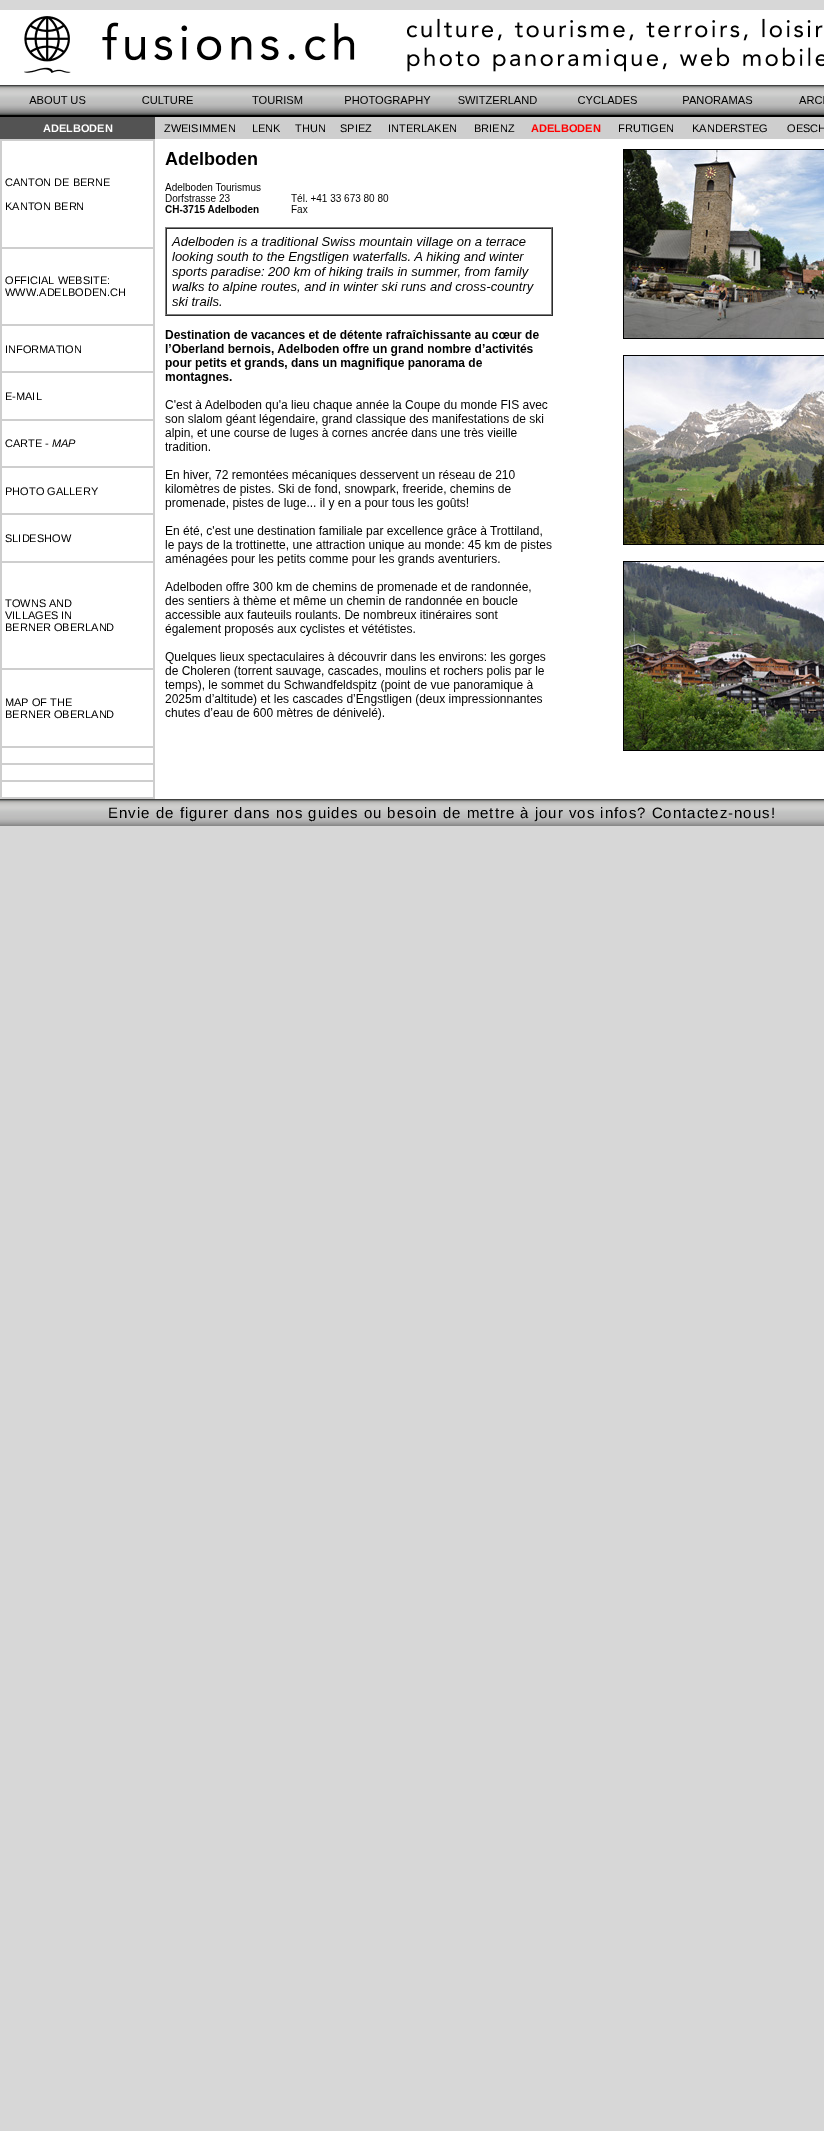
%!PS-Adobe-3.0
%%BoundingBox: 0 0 824 2131
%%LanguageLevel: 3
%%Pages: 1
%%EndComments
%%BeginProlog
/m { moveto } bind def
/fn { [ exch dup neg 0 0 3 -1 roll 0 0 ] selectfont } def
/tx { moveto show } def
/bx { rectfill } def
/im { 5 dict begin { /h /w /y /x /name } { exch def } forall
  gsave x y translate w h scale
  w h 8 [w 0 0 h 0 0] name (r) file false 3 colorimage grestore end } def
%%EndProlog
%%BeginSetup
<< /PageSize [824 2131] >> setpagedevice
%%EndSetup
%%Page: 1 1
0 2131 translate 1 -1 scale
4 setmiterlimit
0.843 setgray
0 0 824 2131 bx
1 setgray
0 10 824 75 bx
(image0.raw) 24 16 800 57 im
(image1.raw) 0 85 824 32 im
0.325 setgray
0 117 155 22 bx
/LiberationSans-Bold 11 fn
1 setgray
(ADELBODEN) 43 132 tx
0.808 setgray
0 139 155 660 bx
1 setgray
2 141 151 106 bx
/LiberationSans-Regular 11 fn
0 setgray
(CANTON DE BERNE) 5 186 tx
(KANTON BERN) 5 210 tx
1 setgray
2 249 151 75 bx
0 setgray
(OFFICIAL WEBSITE:) 5 284 tx
(WWW.ADELBODEN.CH) 5 296 tx
1 setgray
2 326 151 45 bx
0 setgray
(INFORMATION) 5 353 tx
1 setgray
2 373 151 46 bx
0 setgray
(E-MAIL) 5 400 tx
1 setgray
2 421 151 45 bx
0 setgray
(CARTE -) 5 447 tx
/LiberationSans-Italic 11 fn
(MAP) 52 447 tx
1 setgray
2 468 151 45 bx
/LiberationSans-Regular 11 fn
0 setgray
(PHOTO GALLERY) 5 495 tx
1 setgray
2 515 151 46 bx
0 setgray
(SLIDESHOW) 5 542 tx
1 setgray
2 563 151 105 bx
0 setgray
(TOWNS AND) 5 607 tx
(VILLAGES IN) 5 619 tx
(BERNER OBERLAND) 5 631 tx
1 setgray
2 670 151 76 bx
0 setgray
(MAP OF THE) 5 706 tx
(BERNER OBERLAND) 5 718 tx
1 setgray
2 748 151 15 bx
2 765 151 15 bx
2 782 151 15 bx
0.808 setgray
155 117 669 22 bx
0 setgray
(ZWEISIMMEN) 164 132 tx
(LENK) 252 132 tx
(THUN) 295 132 tx
(SPIEZ) 340 132 tx
(INTERLAKEN) 388 132 tx
(BRIENZ) 474 132 tx
/LiberationSans-Bold 11 fn
1 0 0 setrgbcolor
(ADELBODEN) 531 132 tx
/LiberationSans-Regular 11 fn
0 setgray
(FRUTIGEN) 618 132 tx
(KANDERSTEG) 692 132 tx
(OESCH) 787 132 tx
(image2.raw) 155 139 669 660 im
(image3.raw) 0 799 824 27 im
/LiberationSans-Regular 15 fn
108 818 m 1 0 (Envie de figurer dans nos guides ou besoin de mettre à jour vos infos? Contactez-nous!) ashow
showpage
%%EOF
